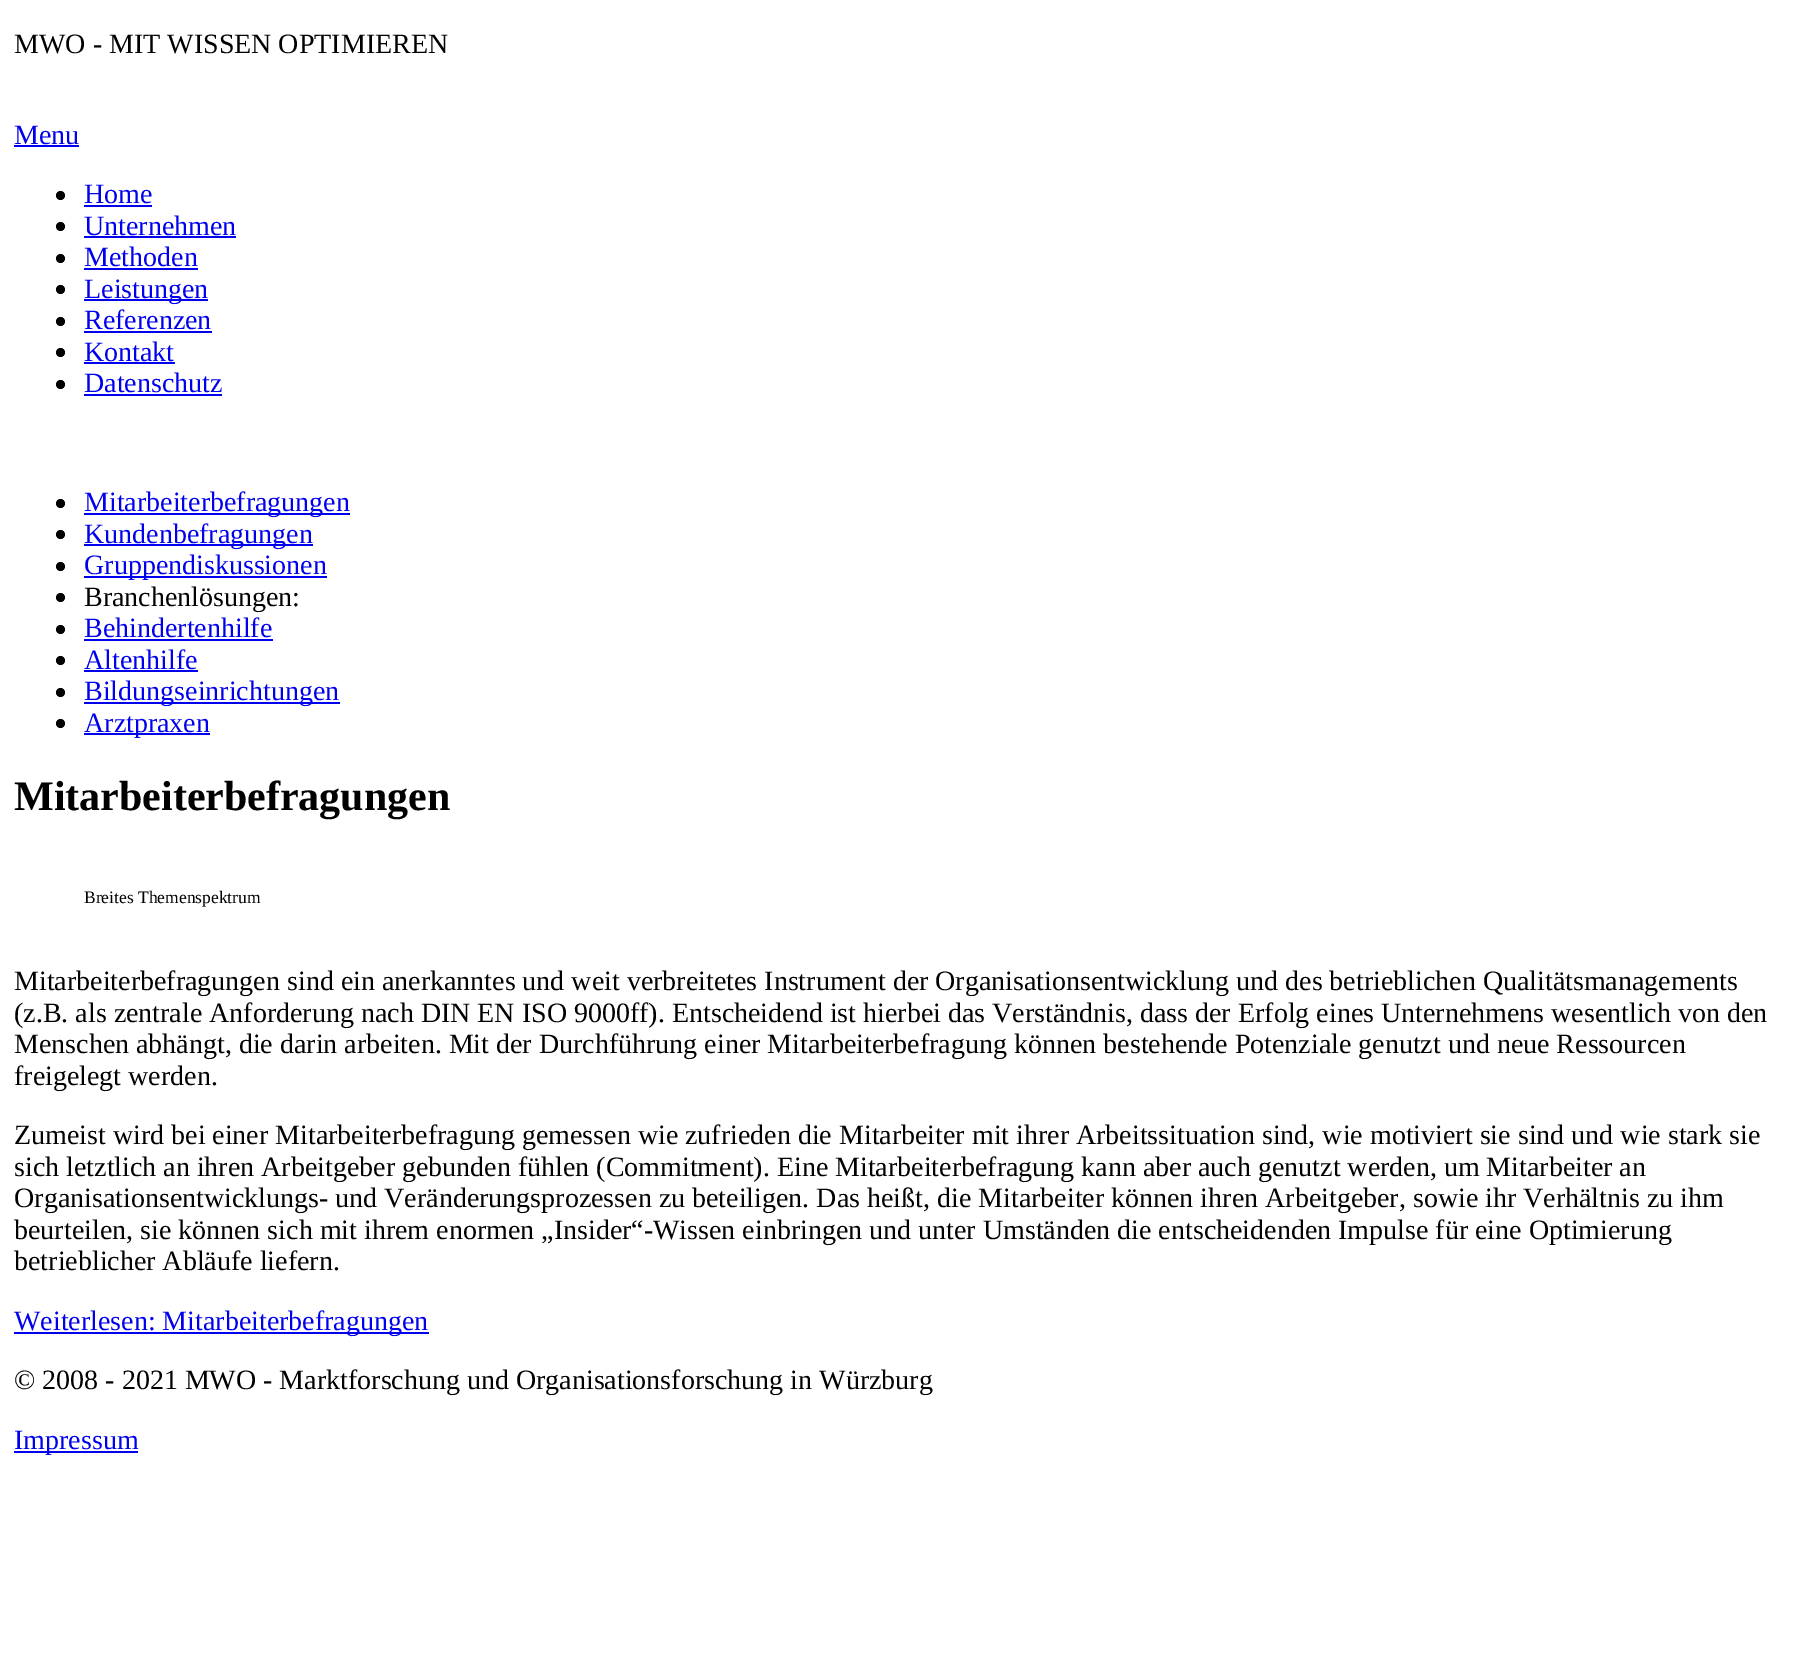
%!PS-Adobe-3.0
%%BoundingBox: 0 0 1811 1657
%%LanguageLevel: 3
%%Pages: 1
%%EndComments
%%BeginProlog
/f { fill } bind def
/fn { [ exch dup neg 0 0 3 -1 roll 0 0 ] selectfont } def
/tx { moveto show } def
/bx { rectfill } def
/ci { newpath 0 360 arc closepath } def
%%EndProlog
%%BeginSetup
<< /PageSize [1811 1657] >> setpagedevice
%%EndSetup
%%Page: 1 1
0 1657 translate 1 -1 scale
4 setmiterlimit
1 setgray
0 0 1811 1657 bx
/LiberationSerif-Regular 28 fn
0 setgray
(MWO - MIT WISSEN OPTIMIEREN) 14 53 tx
0 0 0.933 setrgbcolor
(Menu) 14 144 tx
14 145 65 2 bx
0 setgray
60.5 195.5 4.5 ci f
0 0 0.933 setrgbcolor
(Home) 84 203 tx
84 205 68 2 bx
0 setgray
60.5 226.5 4.5 ci f
0 0 0.933 setrgbcolor
(Unternehmen) 84 235 tx
84 236 152 2 bx
0 setgray
60.5 258.5 4.5 ci f
0 0 0.933 setrgbcolor
(Methoden) 84 266 tx
84 268 114 2 bx
0 setgray
60.5 289.5 4.5 ci f
0 0 0.933 setrgbcolor
84 299 124 2 bx
(Leistungen) 84 298 tx
0 setgray
60.5 321.5 4.5 ci f
0 0 0.933 setrgbcolor
(Referenzen) 84 329 tx
84 331 128 2 bx
0 setgray
60.5 352.5 4.5 ci f
0 0 0.933 setrgbcolor
(Kontakt) 84 361 tx
84 362 91 2 bx
0 setgray
60.5 384.5 4.5 ci f
0 0 0.933 setrgbcolor
(Datenschutz) 84 392 tx
84 394 138 2 bx
0 setgray
60.5 503.5 4.5 ci f
0 0 0.933 setrgbcolor
84 513 266 2 bx
(Mitarbeiterbefragungen) 84 511 tx
0 setgray
60.5 534.5 4.5 ci f
0 0 0.933 setrgbcolor
84 544 229 2 bx
(Kundenbefragungen) 84 543 tx
0 setgray
60.5 566.5 4.5 ci f
0 0 0.933 setrgbcolor
84 576 243 2 bx
(Gruppendiskussionen) 84 574 tx
0 setgray
60.5 597.5 4.5 ci f
(Branchenlösungen:) 84 606 tx
60.5 629.5 4.5 ci f
0 0 0.933 setrgbcolor
(Behindertenhilfe) 84 637 tx
84 639 189 2 bx
0 setgray
60.5 660.5 4.5 ci f
0 0 0.933 setrgbcolor
(Altenhilfe) 84 669 tx
84 670 114 2 bx
0 setgray
60.5 692.5 4.5 ci f
0 0 0.933 setrgbcolor
84 702 256 2 bx
(Bildungseinrichtungen) 84 700 tx
0 setgray
60.5 723.5 4.5 ci f
0 0 0.933 setrgbcolor
84 733 126 2 bx
(Arztpraxen) 84 732 tx
/LiberationSerif-Bold 42 fn
0 setgray
(Mitarbeiterbefragungen) 14 810 tx
/LiberationSerif-Regular 17.5 fn
(Breites Themenspektrum) 84 903 tx
/LiberationSerif-Regular 28 fn
(Mitarbeiterbefragungen sind ein anerkanntes und weit verbreitetes Instrument der Organisationsentwicklung und des betrieblichen Qualitätsmanagements) 14 990 tx
(\(z.B. als zentrale Anforderung nach DIN EN ISO 9000ff\). Entscheidend ist hierbei das Verständnis, dass der Erfolg eines Unternehmens wesentlich von den) 14 1022 tx
(Menschen abhängt, die darin arbeiten. Mit der Durchführung einer Mitarbeiterbefragung können bestehende Potenziale genutzt und neue Ressourcen) 14 1053 tx
(freigelegt werden.) 14 1085 tx
(Zumeist wird bei einer Mitarbeiterbefragung gemessen wie zufrieden die Mitarbeiter mit ihrer Arbeitssituation sind, wie motiviert sie sind und wie stark sie) 14 1144 tx
(sich letztlich an ihren Arbeitgeber gebunden fühlen \(Commitment\). Eine Mitarbeiterbefragung kann aber auch genutzt werden, um Mitarbeiter an) 14 1176 tx
(Organisationsentwicklungs- und Veränderungsprozessen zu beteiligen. Das heißt, die Mitarbeiter können ihren Arbeitgeber, sowie ihr Verhältnis zu ihm) 14 1207 tx
(beurteilen, sie können sich mit ihrem enormen „Insider“-Wissen einbringen und unter Umständen die entscheidenden Impulse für eine Optimierung) 14 1239 tx
(betrieblicher Abläufe liefern.) 14 1270 tx
0 0 0.933 setrgbcolor
14 1332 415 2 bx
(Weiterlesen: Mitarbeiterbefragungen) 14 1330 tx
0 setgray
(© 2008 - 2021 MWO - Marktforschung und Organisationsforschung in Würzburg) 14 1389 tx
0 0 0.933 setrgbcolor
14 1451 124 2 bx
(Impressum) 14 1449 tx
showpage
%%EOF
